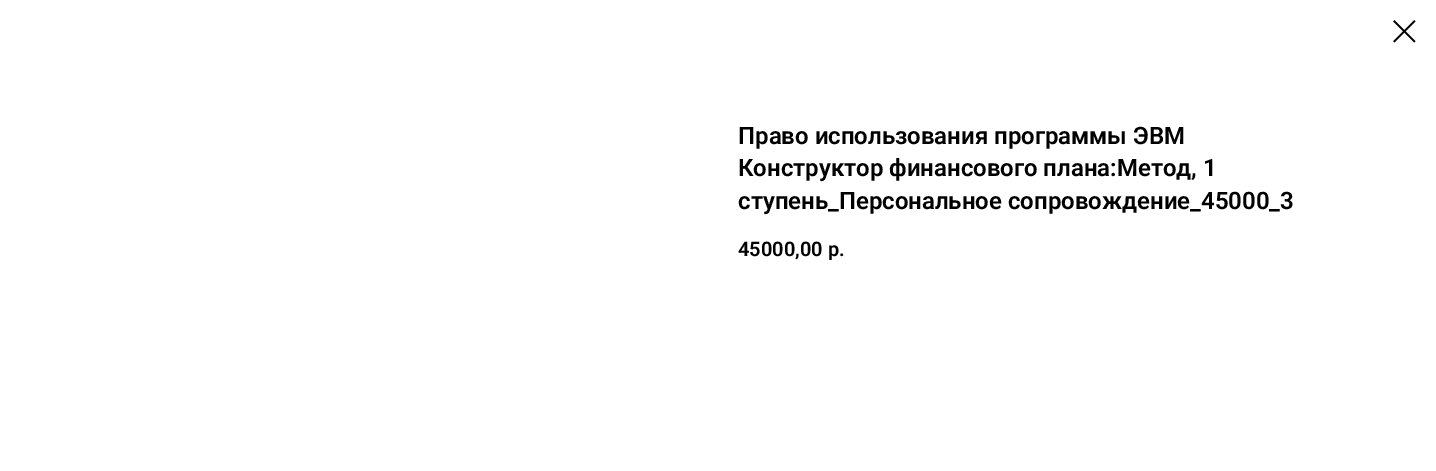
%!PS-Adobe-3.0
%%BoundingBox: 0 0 1436 471
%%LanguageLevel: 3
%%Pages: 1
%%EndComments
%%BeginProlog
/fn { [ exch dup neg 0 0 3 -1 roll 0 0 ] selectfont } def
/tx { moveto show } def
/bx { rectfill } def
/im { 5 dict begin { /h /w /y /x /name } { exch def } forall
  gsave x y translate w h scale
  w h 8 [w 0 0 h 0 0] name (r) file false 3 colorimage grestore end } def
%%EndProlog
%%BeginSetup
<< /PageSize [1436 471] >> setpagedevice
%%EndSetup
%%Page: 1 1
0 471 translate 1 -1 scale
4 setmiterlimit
1 setgray
0 0 1436 471 bx
(image0.raw) 1393 20 23 23 im
/Roboto-SemiBold 24 fn
0 setgray
(Право использования программы ЭВМ) 738 144 tx
(Конструктор финансового плана:Метод, 1) 738 176 tx
(ступень_Персональное сопровождение_45000_3) 738 209 tx
/Roboto-SemiBold 20 fn
(45000,00) 738 256 tx
(р.) 828 256 tx
showpage
%%EOF
